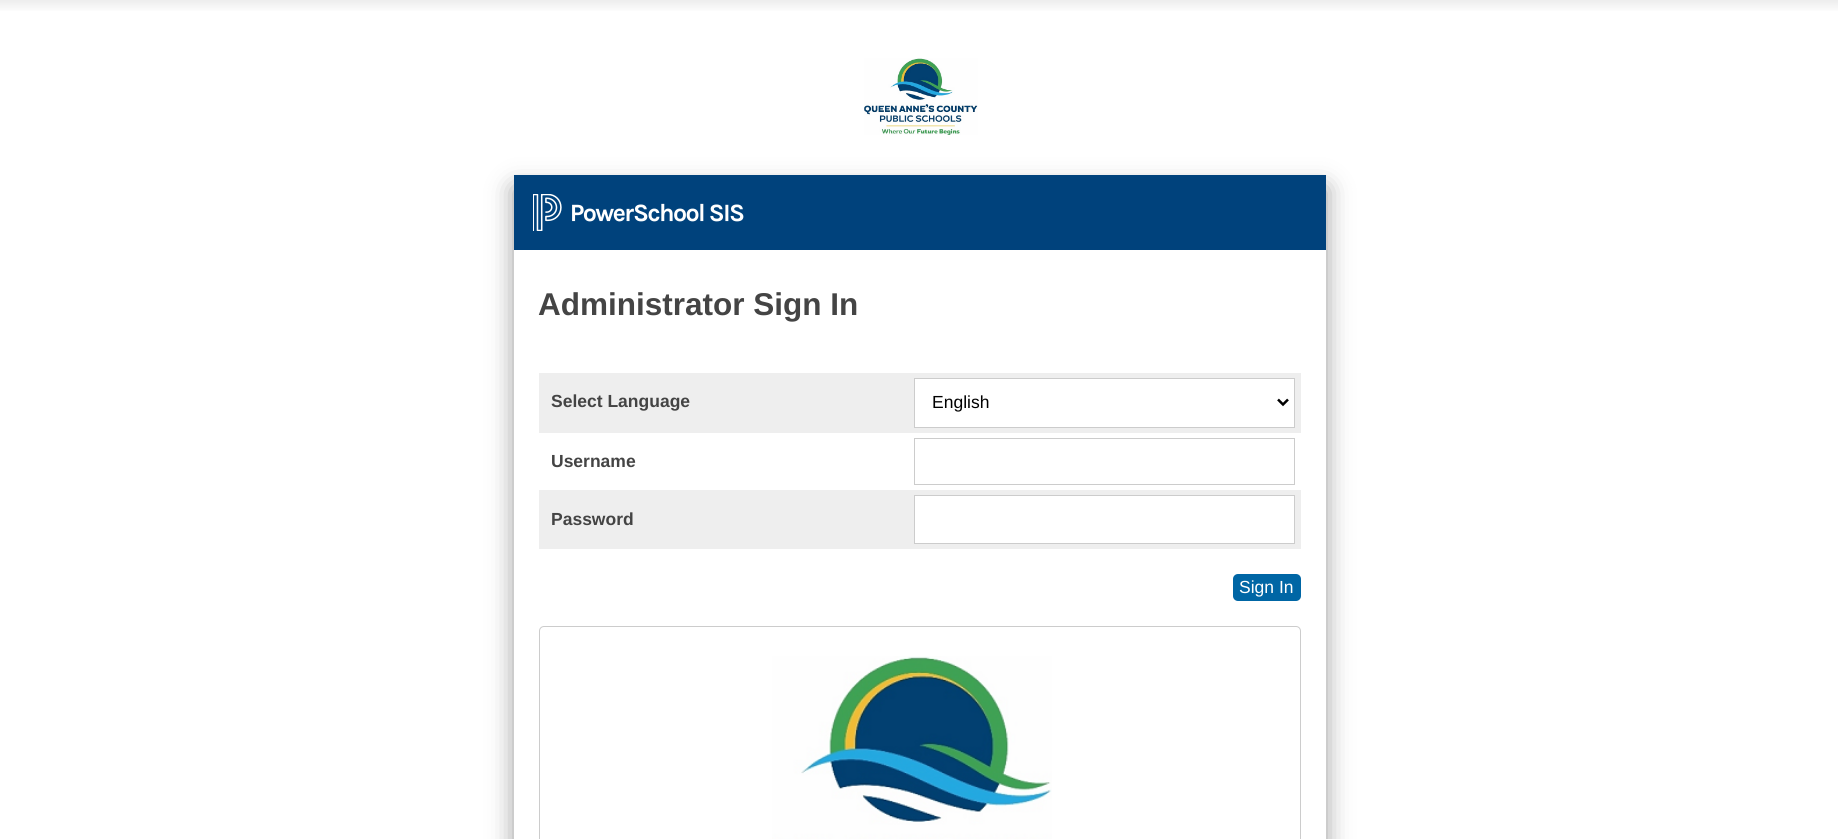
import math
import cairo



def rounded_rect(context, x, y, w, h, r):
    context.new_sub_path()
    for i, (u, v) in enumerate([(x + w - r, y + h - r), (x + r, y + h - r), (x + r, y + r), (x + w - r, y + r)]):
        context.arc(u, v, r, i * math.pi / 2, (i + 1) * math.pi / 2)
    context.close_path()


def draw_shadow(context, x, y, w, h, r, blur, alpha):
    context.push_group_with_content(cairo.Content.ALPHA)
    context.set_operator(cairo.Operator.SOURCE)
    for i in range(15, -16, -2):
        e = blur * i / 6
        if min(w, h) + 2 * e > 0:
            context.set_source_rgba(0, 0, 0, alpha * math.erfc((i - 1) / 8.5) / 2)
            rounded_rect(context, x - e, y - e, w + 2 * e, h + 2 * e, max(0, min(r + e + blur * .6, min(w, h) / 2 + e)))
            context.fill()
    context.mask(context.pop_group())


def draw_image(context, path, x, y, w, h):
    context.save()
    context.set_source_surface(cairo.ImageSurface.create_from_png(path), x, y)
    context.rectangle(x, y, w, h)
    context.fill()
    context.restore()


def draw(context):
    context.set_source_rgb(1, 1, 1)
    context.paint()
    gradient = cairo.LinearGradient(0, 0, 0, 13)
    gradient.add_color_stop_rgba(0, 237 / 255, 237 / 255, 237 / 255, 1)
    gradient.add_color_stop_rgba(1, 1, 1, 1, 1)
    context.set_source(gradient)
    context.rectangle(0, 0, 1838, 11)
    context.fill()
    draw_image(context, "images/1.png", 864, 58, 114, 77)
    context.save()
    context.set_fill_rule(cairo.FillRule.EVEN_ODD)
    context.new_path()
    context.move_to(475, 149)
    context.line_to(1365, 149)
    context.line_to(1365, 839)
    context.line_to(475, 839)
    context.close_path()
    context.move_to(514, 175)
    context.line_to(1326, 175)
    context.line_to(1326, 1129)
    context.line_to(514, 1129)
    context.close_path()
    context.clip()
    context.set_source_rgb(0, 0, 0)
    draw_shadow(context, 514, 188, 812, 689, 0, 12.5, 0.4)
    context.restore()
    context.set_source_rgb(0, 66 / 255, 124 / 255)
    context.rectangle(514, 175, 812, 75)
    context.fill()
    draw_image(context, "images/2.png", 533, 194, 211, 37)
    context.set_source_rgb(238 / 255, 238 / 255, 238 / 255)
    context.rectangle(539, 373, 762, 60)
    context.fill()
    context.set_source_rgb(1, 1, 1)
    context.rectangle(914.5, 378.5, 380, 49)
    context.fill_preserve()
    context.set_source_rgb(204 / 255, 204 / 255, 204 / 255)
    context.set_line_width(1)
    context.stroke()
    context.new_path()
    context.move_to(1278, 399.5)
    context.line_to(1283, 404.5)
    context.line_to(1288, 399.5)
    context.set_source_rgb(0, 0, 0)
    context.set_line_width(2.5)
    context.stroke()
    context.rectangle(914.5, 438.5, 380, 46)
    context.set_source_rgb(204 / 255, 204 / 255, 204 / 255)
    context.set_line_width(1)
    context.stroke()
    context.set_source_rgb(238 / 255, 238 / 255, 238 / 255)
    context.rectangle(539, 490, 762, 59)
    context.fill()
    context.set_source_rgb(1, 1, 1)
    context.rectangle(914.5, 495.5, 380, 48)
    context.fill_preserve()
    context.set_source_rgb(204 / 255, 204 / 255, 204 / 255)
    context.stroke()
    context.set_source_rgb(0, 102 / 255, 165 / 255)
    rounded_rect(context, 1233, 574, 68, 27, 5)
    context.fill()
    rounded_rect(context, 539.5, 626.5, 761, 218, 4.5)
    context.set_source_rgb(204 / 255, 204 / 255, 204 / 255)
    context.stroke()
    draw_image(context, "images/3.png", 772, 656, 280, 183)
    context.select_font_face("Liberation Sans", cairo.FontSlant.NORMAL, cairo.FontWeight.BOLD)
    context.set_font_size(31.5)
    context.set_source_rgb(68 / 255, 68 / 255, 68 / 255)
    context.move_to(538, 315)
    context.show_text("Administrator Sign In")
    context.set_font_size(17.5)
    context.move_to(551, 407)
    context.show_text("Select Language")
    context.select_font_face("Liberation Sans")
    context.set_source_rgb(0, 0, 0)
    context.move_to(932, 408)
    context.show_text("English")
    context.select_font_face("Liberation Sans", cairo.FontSlant.NORMAL, cairo.FontWeight.BOLD)
    context.set_source_rgb(68 / 255, 68 / 255, 68 / 255)
    context.move_to(551, 467)
    context.show_text("Username")
    context.move_to(551, 525)
    context.show_text("Password")
    context.select_font_face("Liberation Sans")
    context.set_source_rgb(1, 1, 1)
    context.move_to(1239, 593)
    context.show_text("Sign In")


surface = cairo.ImageSurface(cairo.Format.RGB24, 1838, 839)
context = cairo.Context(surface)
options = cairo.FontOptions()
options.set_hint_metrics(cairo.HintMetrics.OFF)
options.set_hint_style(cairo.HintStyle.NONE)
context.set_font_options(options)
context.set_miter_limit(4)
draw(context)
surface.write_to_png("out.png")
